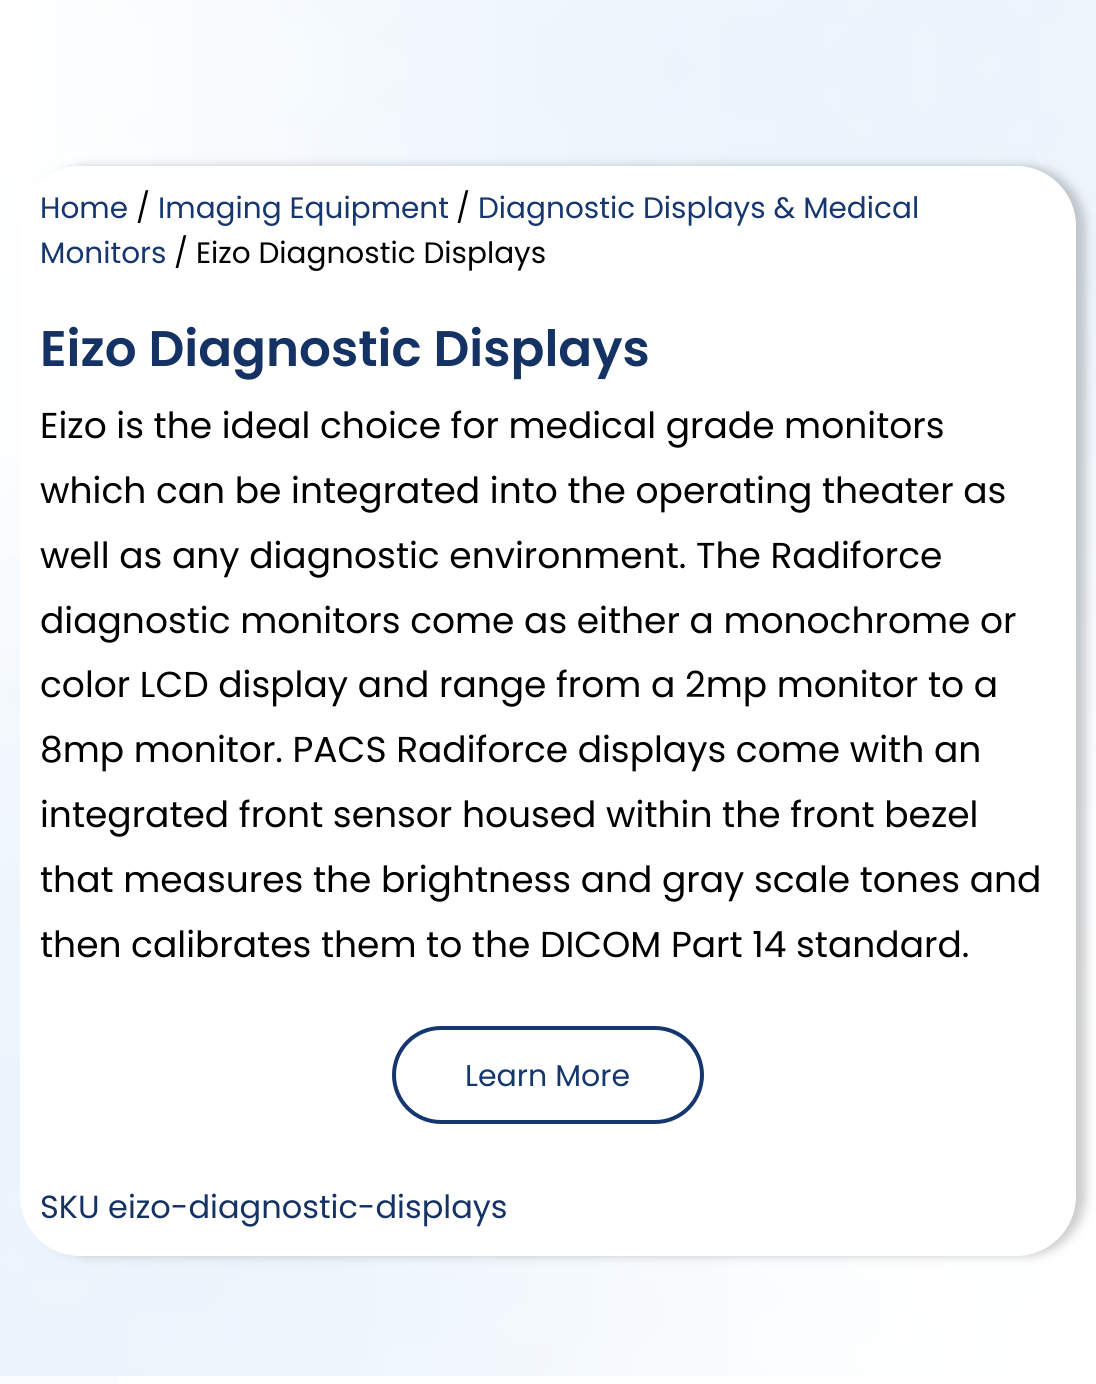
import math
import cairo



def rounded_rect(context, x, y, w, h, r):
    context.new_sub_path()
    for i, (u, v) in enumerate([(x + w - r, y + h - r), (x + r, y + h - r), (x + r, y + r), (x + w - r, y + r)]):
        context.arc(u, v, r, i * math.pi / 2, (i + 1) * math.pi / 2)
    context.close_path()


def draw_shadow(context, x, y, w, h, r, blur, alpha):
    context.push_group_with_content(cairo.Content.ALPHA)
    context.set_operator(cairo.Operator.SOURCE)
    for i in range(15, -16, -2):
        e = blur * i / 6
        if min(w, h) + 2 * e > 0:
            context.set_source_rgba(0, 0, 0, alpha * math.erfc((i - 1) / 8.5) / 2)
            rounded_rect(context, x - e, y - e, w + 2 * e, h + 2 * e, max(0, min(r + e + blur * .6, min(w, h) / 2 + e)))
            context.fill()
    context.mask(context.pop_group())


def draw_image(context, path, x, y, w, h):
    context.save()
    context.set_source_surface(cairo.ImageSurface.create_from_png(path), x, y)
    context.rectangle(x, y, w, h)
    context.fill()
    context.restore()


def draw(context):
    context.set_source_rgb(1, 1, 1)
    context.paint()
    draw_image(context, "images/1.png", 0, 0, 1096, 1376)
    context.set_source_rgb(0, 0, 0)
    draw_shadow(context, 30, 166, 1056, 1090, 60, 5, 0.2)
    context.set_source_rgb(1, 1, 1)
    rounded_rect(context, 20, 166, 1056, 1090, 60)
    context.fill()
    rounded_rect(context, 394, 1028, 308, 94, 47)
    context.set_source_rgb(21 / 255, 54 / 255, 110 / 255)
    context.set_line_width(4)
    context.stroke()
    context.set_source_rgb(250 / 255, 252 / 255, 254 / 255)
    context.rectangle(0, 1376, 119, 8)
    context.fill()
    context.select_font_face("Poppins")
    context.set_font_size(29.5)
    context.set_source_rgb(21 / 255, 54 / 255, 110 / 255)
    context.move_to(40, 218)
    context.show_text("Home")
    context.set_source_rgb(0, 0, 0)
    context.move_to(136, 218)
    context.show_text("/")
    context.set_source_rgb(21 / 255, 54 / 255, 110 / 255)
    context.move_to(158, 218)
    context.show_text("Imaging Equipment")
    context.set_source_rgb(0, 0, 0)
    context.move_to(456, 218)
    context.show_text("/")
    context.set_source_rgb(21 / 255, 54 / 255, 110 / 255)
    context.move_to(478, 218)
    context.show_text("Diagnostic Displays & Medical")
    context.move_to(40, 263)
    context.show_text("Monitors")
    context.set_source_rgb(0, 0, 0)
    context.move_to(174, 263)
    context.show_text("/ Eizo Diagnostic Displays")
    context.select_font_face("Poppins SemiBold")
    context.set_font_size(50)
    context.set_source_rgb(20 / 255, 50 / 255, 100 / 255)
    context.move_to(40, 366)
    context.show_text("Eizo Diagnostic Displays")
    context.select_font_face("Poppins")
    context.set_font_size(36)
    context.set_source_rgb(0, 0, 0)
    context.move_to(40, 438)
    context.show_text("Eizo is the ideal choice for medical grade monitors")
    context.move_to(40, 503)
    context.show_text("which can be integrated into the operating theater as")
    context.move_to(40, 568)
    context.show_text("well as any diagnostic environment. The Radiforce")
    context.move_to(40, 633)
    context.show_text("diagnostic monitors come as either a monochrome or")
    context.move_to(40, 697)
    context.show_text("color LCD display and range from a 2mp monitor to a")
    context.move_to(40, 762)
    context.show_text("8mp monitor. PACS Radiforce displays come with an")
    context.move_to(40, 827)
    context.show_text("integrated front sensor housed within the front bezel")
    context.move_to(40, 892)
    context.show_text("that measures the brightness and gray scale tones and")
    context.move_to(40, 957)
    context.show_text("then calibrates them to the DICOM Part 14 standard.")
    context.set_font_size(30)
    context.set_source_rgb(21 / 255, 54 / 255, 110 / 255)
    context.move_to(465, 1086)
    context.show_text("Learn More")
    context.set_font_size(32)
    context.set_source_rgb(20 / 255, 50 / 255, 100 / 255)
    context.move_to(40, 1218)
    context.show_text("SKU eizo-diagnostic-displays")


surface = cairo.ImageSurface(cairo.Format.RGB24, 1096, 1384)
context = cairo.Context(surface)
options = cairo.FontOptions()
options.set_hint_metrics(cairo.HintMetrics.OFF)
options.set_hint_style(cairo.HintStyle.NONE)
context.set_font_options(options)
context.set_miter_limit(4)
draw(context)
surface.write_to_png("out.png")
